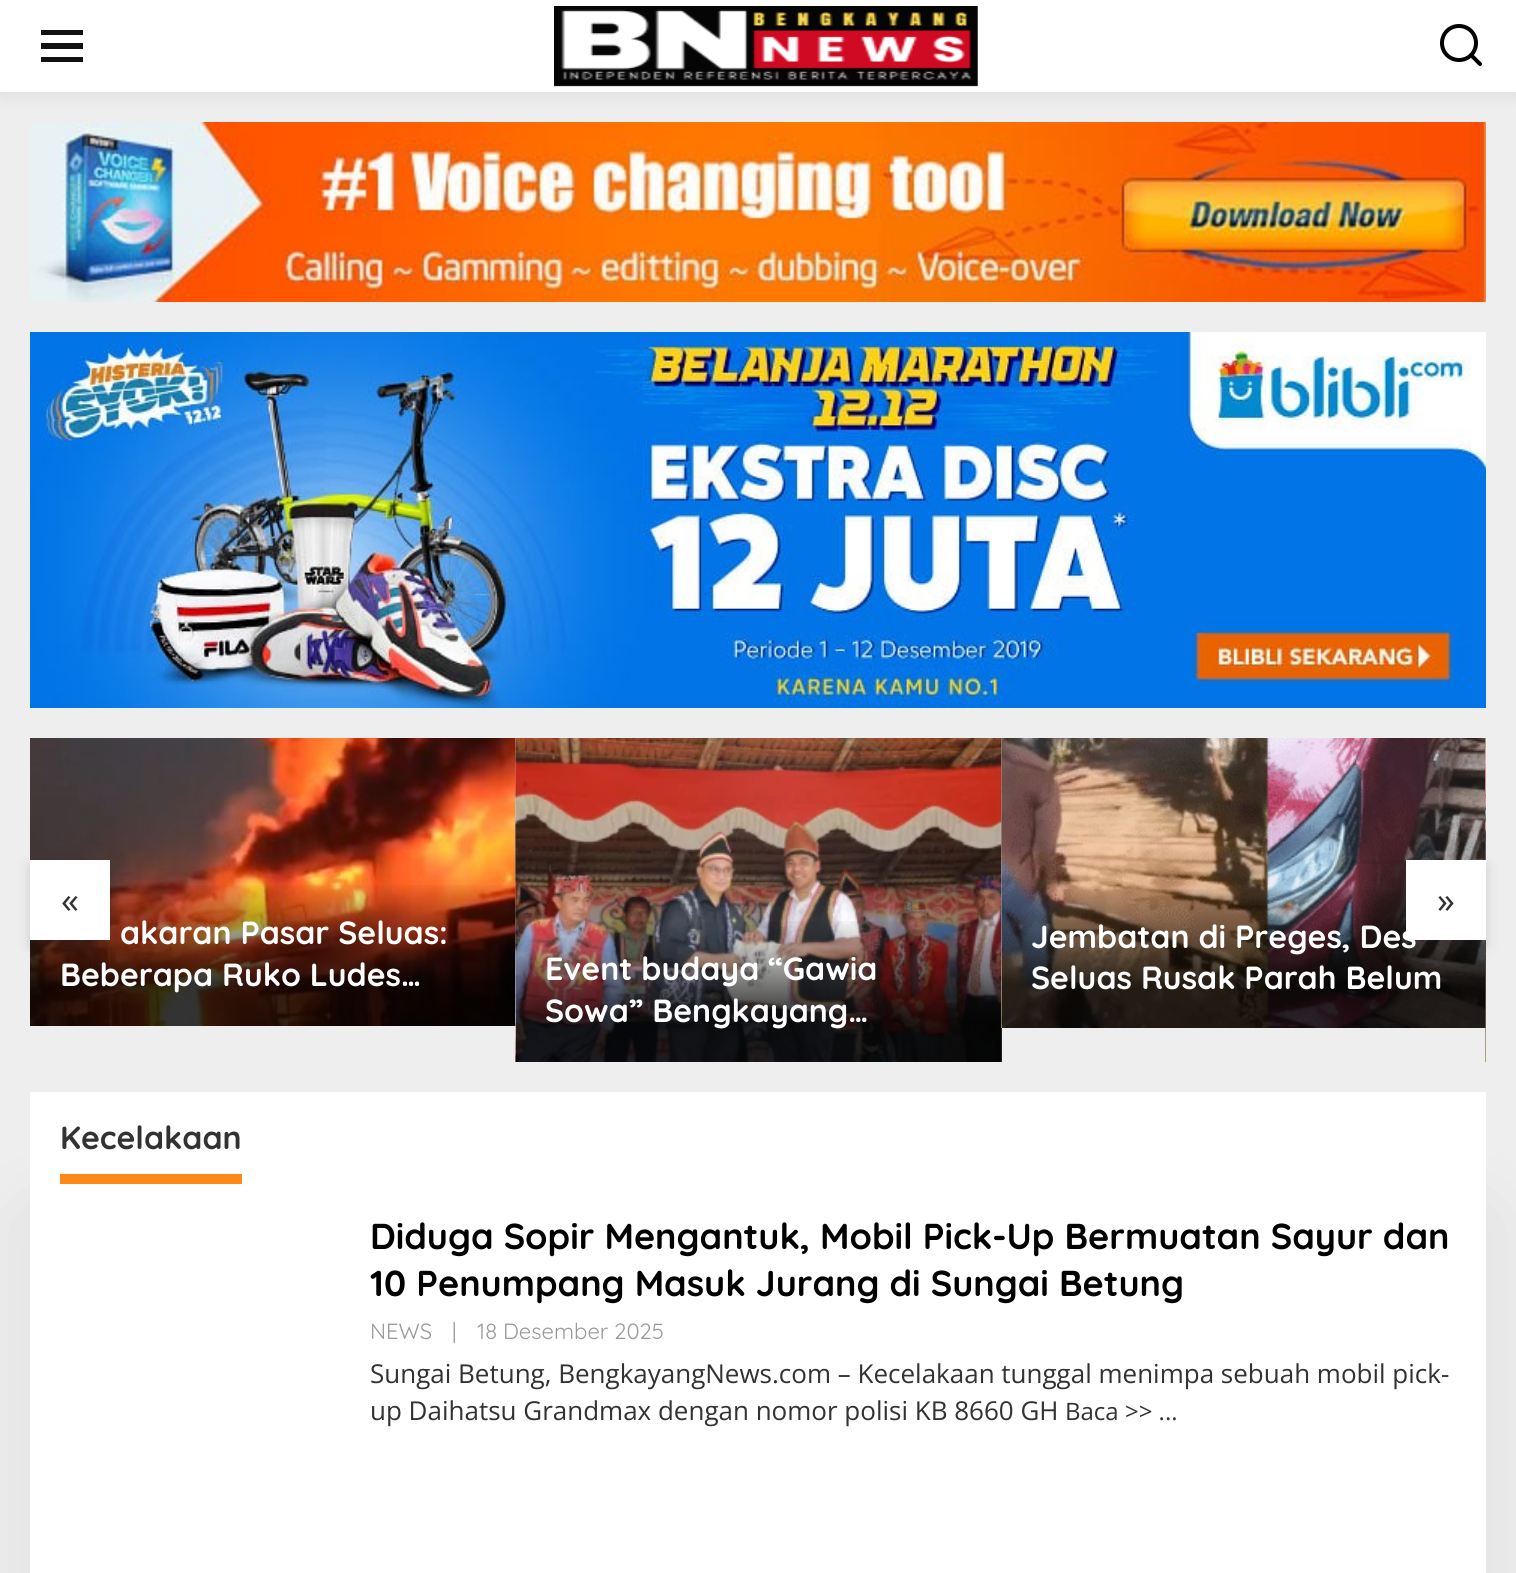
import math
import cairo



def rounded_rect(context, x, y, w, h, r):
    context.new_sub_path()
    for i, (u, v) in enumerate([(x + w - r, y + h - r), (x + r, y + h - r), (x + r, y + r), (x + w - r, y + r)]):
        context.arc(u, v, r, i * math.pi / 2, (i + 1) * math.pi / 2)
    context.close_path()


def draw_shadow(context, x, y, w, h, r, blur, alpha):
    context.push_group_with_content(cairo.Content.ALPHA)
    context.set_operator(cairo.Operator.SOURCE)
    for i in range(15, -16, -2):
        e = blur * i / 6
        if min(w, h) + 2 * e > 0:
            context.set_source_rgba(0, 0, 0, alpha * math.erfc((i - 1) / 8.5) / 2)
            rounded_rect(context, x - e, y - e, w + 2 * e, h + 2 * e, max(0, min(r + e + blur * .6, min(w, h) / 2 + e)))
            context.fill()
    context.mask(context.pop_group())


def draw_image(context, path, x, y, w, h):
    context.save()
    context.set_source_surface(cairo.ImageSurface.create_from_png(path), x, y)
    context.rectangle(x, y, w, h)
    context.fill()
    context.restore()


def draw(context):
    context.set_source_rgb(238 / 255, 238 / 255, 238 / 255)
    context.paint()
    draw_image(context, "images/2.png", 30, 122, 1456, 180)
    context.set_source_rgb(0, 0, 0)
    draw_shadow(context, 0, 0, 1516, 92, 0, 10, 0.1)
    context.set_source_rgb(1, 1, 1)
    context.rectangle(0, 0, 1516, 92)
    context.fill()
    context.set_source_rgb(17 / 255, 17 / 255, 17 / 255)
    context.new_path()
    context.move_to(41, 30)
    context.line_to(83, 30)
    context.line_to(83, 35)
    context.line_to(41, 35)
    context.close_path()
    context.move_to(41, 43)
    context.line_to(83, 43)
    context.line_to(83, 49)
    context.line_to(41, 49)
    context.close_path()
    context.move_to(41, 57)
    context.line_to(83, 57)
    context.line_to(83, 62)
    context.line_to(41, 62)
    context.close_path()
    context.fill()
    draw_image(context, "images/1.png", 554, 6, 424, 81)
    context.new_path()
    context.move_to(1480, 64)
    context.line_to(1471, 55)
    context.move_to(1476, 43)
    context.curve_to(1476, 52.5, 1468.5, 60, 1459, 60)
    context.curve_to(1449.5, 60, 1442, 52.5, 1442, 43)
    context.curve_to(1442, 33.5, 1449.5, 26, 1459, 26)
    context.curve_to(1468.5, 26, 1476, 33.5, 1476, 43)
    context.close_path()
    context.set_source_rgb(0, 0, 0)
    context.set_line_width(4)
    context.set_line_cap(cairo.LineCap.ROUND)
    context.stroke()
    draw_image(context, "images/3.png", 30, 332, 1456, 376)
    draw_image(context, "images/4.png", 30, 738, 486, 288)
    gradient = cairo.LinearGradient(272, 882, 272, 1026)
    gradient.add_color_stop_rgba(0, 0, 0, 0, 0)
    gradient.add_color_stop_rgba(0.7, 0, 0, 0, 0.8)
    context.set_source(gradient)
    context.rectangle(30, 885, 486, 141)
    context.fill()
    context.set_source_rgb(51 / 255, 51 / 255, 51 / 255)
    draw_shadow(context, 30, 866, 80, 80, 0, 6, 0.2)
    context.set_source_rgb(1, 1, 1)
    context.rectangle(30, 860, 80, 80)
    context.fill()
    draw_image(context, "images/5.png", 515, 738, 487, 324)
    gradient = cairo.LinearGradient(758, 918, 758, 1062)
    gradient.add_color_stop_rgba(0, 0, 0, 0, 0)
    gradient.add_color_stop_rgba(0.7, 0, 0, 0, 0.8)
    context.set_source(gradient)
    context.rectangle(516, 921, 486, 141)
    context.fill()
    draw_image(context, "images/6.png", 1001, 738, 485, 290)
    gradient = cairo.LinearGradient(1243, 886, 1243, 1028)
    gradient.add_color_stop_rgba(0, 0, 0, 0, 0)
    gradient.add_color_stop_rgba(0.7, 0, 0, 0, 0.8)
    context.set_source(gradient)
    context.rectangle(1002, 889, 484, 139)
    context.fill()
    draw_image(context, "images/7.png", 1485, 738, 1, 324)
    context.set_source_rgb(51 / 255, 51 / 255, 51 / 255)
    draw_shadow(context, 1406, 866, 80, 80, 0, 6, 0.2)
    context.set_source_rgb(1, 1, 1)
    context.rectangle(1406, 860, 80, 80)
    context.fill()
    context.set_source_rgb(0, 0, 0)
    draw_shadow(context, 30, 1216, 1456, 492, 0, 45, 0.07)
    context.set_source_rgb(1, 1, 1)
    context.rectangle(30, 1092, 1456, 481)
    context.fill()
    context.set_source_rgb(254 / 255, 137 / 255, 23 / 255)
    context.rectangle(60, 1174, 182, 10)
    context.fill()
    context.select_font_face("Open Sans")
    context.set_font_size(36)
    context.set_source_rgb(50 / 255, 50 / 255, 51 / 255)
    context.move_to(61, 913)
    context.show_text("«")
    context.move_to(1437, 913)
    context.show_text("»")
    context.select_font_face("Quicksand", cairo.FontSlant.NORMAL, cairo.FontWeight.BOLD)
    context.set_font_size(32)
    context.set_source_rgb(1, 1, 1)
    context.move_to(120, 944)
    context.show_text("akaran Pasar Seluas:")
    context.move_to(60, 986)
    context.show_text("Beberapa Ruko Ludes…")
    context.move_to(545, 980)
    context.show_text("Event budaya “Gawia")
    context.move_to(545, 1022)
    context.show_text("Sowa” Bengkayang…")
    context.move_to(1031, 948)
    context.show_text("Jembatan di Preges, Des")
    context.move_to(1031, 989)
    context.show_text("Seluas Rusak Parah Belum")
    context.set_source_rgb(50 / 255, 50 / 255, 51 / 255)
    context.move_to(60, 1149)
    context.show_text("Kecelakaan")
    context.set_font_size(36)
    context.set_source_rgb(0, 0, 0)
    context.move_to(370, 1249)
    context.show_text("Diduga Sopir Mengantuk, Mobil Pick-Up Bermuatan Sayur dan")
    context.move_to(370, 1296)
    context.show_text("10 Penumpang Masuk Jurang di Sungai Betung")
    context.select_font_face("Quicksand")
    context.set_font_size(22)
    context.set_source_rgb(153 / 255, 153 / 255, 153 / 255)
    context.move_to(370, 1339)
    context.show_text("NEWS")
    context.move_to(452, 1339)
    context.show_text("|")
    context.move_to(477, 1339)
    context.show_text("18 Desember 2025")
    context.select_font_face("Open Sans")
    context.set_font_size(26)
    context.set_source_rgb(50 / 255, 50 / 255, 51 / 255)
    context.move_to(370, 1383)
    context.show_text("Sungai Betung, BengkayangNews.com – Kecelakaan tunggal menimpa sebuah mobil pick-")
    context.move_to(370, 1420)
    context.show_text("up Daihatsu Grandmax dengan nomor polisi KB 8660 GH")
    context.set_font_size(24)
    context.move_to(1065, 1420)
    context.show_text("Baca >> ...")


surface = cairo.ImageSurface(cairo.Format.RGB24, 1516, 1573)
context = cairo.Context(surface)
options = cairo.FontOptions()
options.set_hint_metrics(cairo.HintMetrics.OFF)
options.set_hint_style(cairo.HintStyle.NONE)
context.set_font_options(options)
context.set_miter_limit(4)
draw(context)
surface.write_to_png("out.png")
